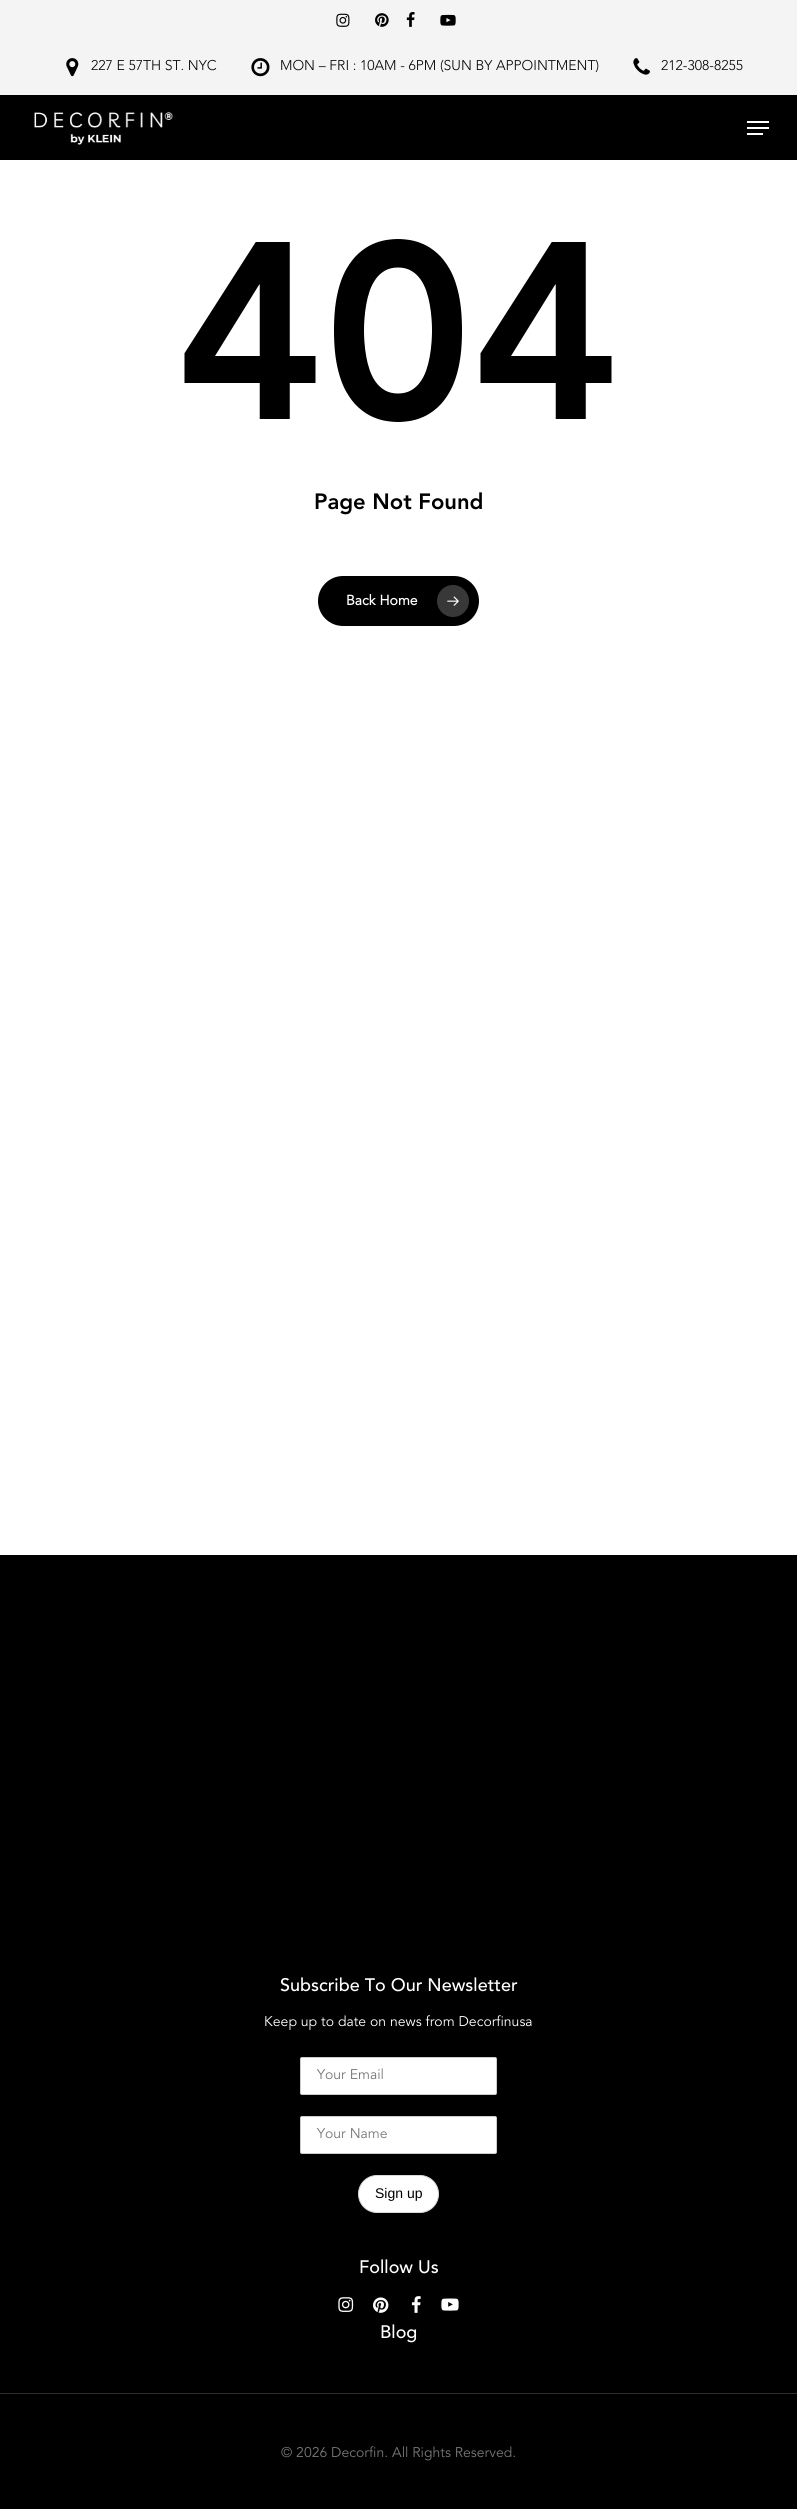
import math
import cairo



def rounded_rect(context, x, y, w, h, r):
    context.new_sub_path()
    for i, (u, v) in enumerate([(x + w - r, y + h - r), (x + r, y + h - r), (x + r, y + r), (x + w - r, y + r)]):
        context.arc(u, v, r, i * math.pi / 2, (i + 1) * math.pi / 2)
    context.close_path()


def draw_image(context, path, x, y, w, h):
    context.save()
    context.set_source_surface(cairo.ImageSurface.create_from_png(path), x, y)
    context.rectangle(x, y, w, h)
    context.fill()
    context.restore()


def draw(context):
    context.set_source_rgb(1, 1, 1)
    context.paint()
    context.set_source_rgb(244 / 255, 244 / 255, 244 / 255)
    context.rectangle(0, 0, 797, 95)
    context.fill()
    draw_image(context, "images/1.png", 336, 13, 14, 14)
    draw_image(context, "images/2.png", 375, 13, 14, 14)
    draw_image(context, "images/3.png", 406, 12, 9, 15)
    draw_image(context, "images/4.png", 440, 14, 16, 12)
    draw_image(context, "images/5.png", 66, 58, 13, 19)
    draw_image(context, "images/6.png", 251, 58, 19, 19)
    draw_image(context, "images/7.png", 633, 58, 17, 17)
    context.set_source_rgb(0, 0, 0)
    context.rectangle(0, 95, 797, 65)
    context.fill()
    draw_image(context, "images/8.png", 34, 112, 139, 33)
    context.set_source_rgb(1, 1, 1)
    context.rectangle(747, 121, 22, 2)
    context.fill()
    context.rectangle(747, 133, 16, 2)
    context.fill()
    context.rectangle(747, 127, 22, 2)
    context.fill()
    context.set_source_rgb(0, 0, 0)
    rounded_rect(context, 318, 576, 161, 50, 25)
    context.fill()
    context.set_source_rgb(56 / 255, 56 / 255, 56 / 255)
    context.arc(453, 601, 16, 0, 2 * math.pi)
    context.fill()
    draw_image(context, "images/9.png", 447, 596, 12, 10)
    context.set_source_rgb(0, 0, 0)
    context.rectangle(0, 1555, 797, 838)
    context.fill()
    context.set_source_rgb(1, 1, 1)
    rounded_rect(context, 300.5, 2057.5, 196, 37, 1.5)
    context.fill_preserve()
    context.set_source_rgb(204 / 255, 204 / 255, 204 / 255)
    context.set_line_width(1)
    context.stroke()
    context.set_source_rgb(1, 1, 1)
    rounded_rect(context, 300.5, 2116.5, 196, 37, 1.5)
    context.fill_preserve()
    context.set_source_rgb(204 / 255, 204 / 255, 204 / 255)
    context.stroke()
    context.set_source_rgb(1, 1, 1)
    rounded_rect(context, 358.5, 2175.5, 80, 37, 18.5)
    context.fill_preserve()
    context.set_source_rgb(217 / 255, 217 / 255, 217 / 255)
    context.stroke()
    draw_image(context, "images/10.png", 338, 2297, 16, 15)
    draw_image(context, "images/11.png", 373, 2297, 16, 16)
    draw_image(context, "images/12.png", 411, 2296, 10, 17)
    draw_image(context, "images/13.png", 441, 2298, 18, 13)
    context.set_source_rgb(0, 0, 0)
    context.rectangle(0, 2394, 797, 115)
    context.fill()
    context.set_source_rgb(46 / 255, 46 / 255, 46 / 255)
    context.rectangle(0, 2393, 797, 1)
    context.fill()
    context.select_font_face("Avenir Light")
    context.set_font_size(14)
    context.set_source_rgb(0, 0, 0)
    context.move_to(91, 70)
    context.show_text("227 E 57TH ST. NYC")
    context.move_to(280, 70)
    context.show_text("MON – FRI : 10AM - 6PM (SUN BY APPOINTMENT)")
    context.move_to(661, 70)
    context.show_text("212-308-8255")
    context.select_font_face("Avenir Black")
    context.set_font_size(250)
    context.move_to(176, 419)
    context.show_text("404")
    context.set_font_size(22)
    context.move_to(314, 509)
    context.show_text("Page Not Found")
    context.select_font_face("Avenir", cairo.FontSlant.NORMAL, cairo.FontWeight.BOLD)
    context.set_font_size(14)
    context.set_source_rgb(1, 1, 1)
    context.move_to(346, 605)
    context.show_text("Back Home")
    context.select_font_face("Avenir Medium")
    context.set_font_size(18)
    context.move_to(280, 1991)
    context.show_text("Subscribe To Our Newsletter")
    context.select_font_face("Avenir")
    context.set_font_size(14)
    context.move_to(264, 2026)
    context.show_text("Keep up to date on news from Decorfinusa")
    context.set_source_rgb(119 / 255, 119 / 255, 119 / 255)
    context.move_to(317, 2079)
    context.show_text("Your Email")
    context.move_to(317, 2138)
    context.show_text("Your Name")
    context.select_font_face("Liberation Sans")
    context.set_source_rgb(0, 0, 0)
    context.move_to(375, 2198)
    context.show_text("Sign up")
    context.select_font_face("Avenir Medium")
    context.set_font_size(18)
    context.set_source_rgb(1, 1, 1)
    context.move_to(359, 2273)
    context.show_text("Follow Us")
    context.move_to(380, 2338)
    context.show_text("Blog")
    context.select_font_face("Avenir")
    context.set_font_size(14)
    context.set_source_rgb(119 / 255, 119 / 255, 119 / 255)
    context.move_to(281, 2457)
    context.show_text("© 2026 Decorfin. All Rights Reserved.")


surface = cairo.ImageSurface(cairo.Format.RGB24, 797, 2509)
context = cairo.Context(surface)
options = cairo.FontOptions()
options.set_hint_metrics(cairo.HintMetrics.OFF)
options.set_hint_style(cairo.HintStyle.NONE)
context.set_font_options(options)
context.set_miter_limit(4)
draw(context)
surface.write_to_png("out.png")
